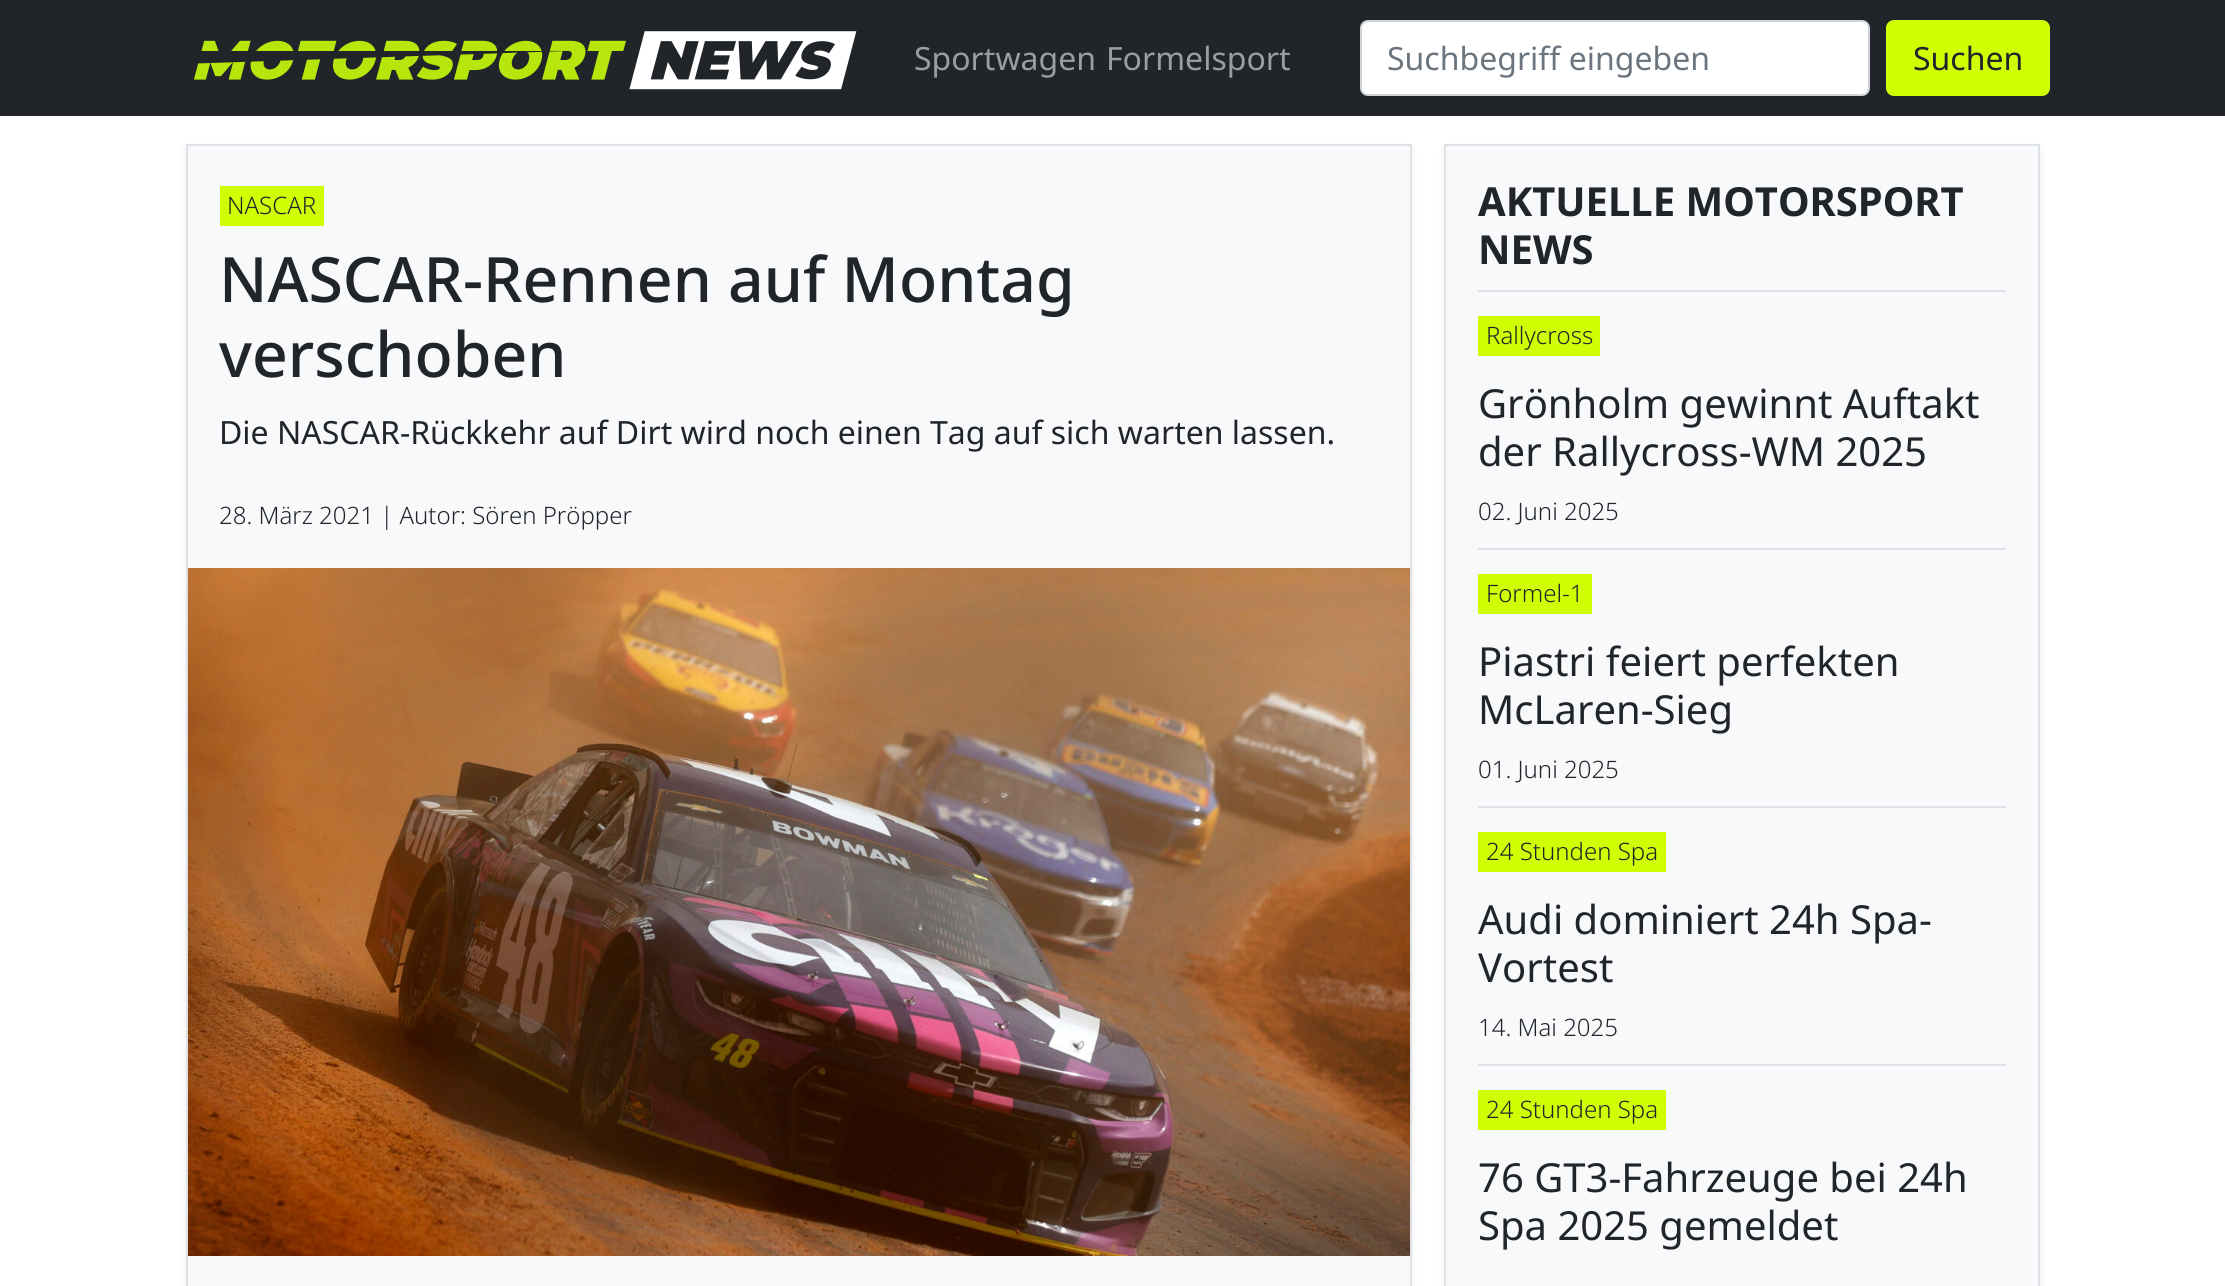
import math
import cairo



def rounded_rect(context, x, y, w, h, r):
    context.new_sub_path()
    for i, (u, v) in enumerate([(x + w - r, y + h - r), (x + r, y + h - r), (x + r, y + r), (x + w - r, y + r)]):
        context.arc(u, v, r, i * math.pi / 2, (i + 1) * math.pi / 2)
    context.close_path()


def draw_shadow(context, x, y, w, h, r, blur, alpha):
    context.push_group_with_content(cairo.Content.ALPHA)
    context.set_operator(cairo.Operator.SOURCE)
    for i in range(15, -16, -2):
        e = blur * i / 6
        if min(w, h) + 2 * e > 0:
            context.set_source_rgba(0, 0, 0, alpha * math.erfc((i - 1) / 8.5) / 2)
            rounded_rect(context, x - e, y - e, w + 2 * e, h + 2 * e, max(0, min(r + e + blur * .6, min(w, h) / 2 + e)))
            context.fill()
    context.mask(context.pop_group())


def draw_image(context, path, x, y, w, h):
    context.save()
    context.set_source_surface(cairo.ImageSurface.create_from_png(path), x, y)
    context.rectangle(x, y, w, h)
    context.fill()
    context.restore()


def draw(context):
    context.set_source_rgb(1, 1, 1)
    context.paint()
    context.set_source_rgb(33 / 255, 37 / 255, 41 / 255)
    context.rectangle(0, 0, 2225, 116)
    context.fill()
    draw_image(context, "images/1.png", 194, 31, 663, 59)
    context.set_source_rgb(1, 1, 1)
    rounded_rect(context, 1361, 21, 508, 74, 7)
    context.fill_preserve()
    context.set_source_rgb(206 / 255, 212 / 255, 218 / 255)
    context.stroke()
    context.set_source_rgb(208 / 255, 254 / 255, 5 / 255)
    rounded_rect(context, 1886, 20, 164, 76, 8)
    context.fill()
    context.set_source_rgb(0, 0, 0)
    draw_shadow(context, 186, 148, 1226, 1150, 0, 4, 0.07)
    context.set_source_rgb(248 / 255, 249 / 255, 250 / 255)
    context.rectangle(188, 147, 1222, 1139)
    context.fill()
    context.rectangle(187, 145, 1224, 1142)
    context.set_source_rgb(222 / 255, 226 / 255, 230 / 255)
    context.stroke()
    context.set_source_rgb(208 / 255, 254 / 255, 5 / 255)
    context.rectangle(220, 186, 104, 40)
    context.fill()
    draw_image(context, "images/2.png", 188, 568, 1222, 688)
    context.set_source_rgb(0, 0, 0)
    draw_shadow(context, 1444, 148, 596, 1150, 0, 4, 0.07)
    context.set_source_rgb(248 / 255, 249 / 255, 250 / 255)
    context.rectangle(1446, 147, 592, 1139)
    context.fill()
    context.rectangle(1445, 145, 594, 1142)
    context.set_source_rgb(222 / 255, 226 / 255, 230 / 255)
    context.stroke()
    context.rectangle(1478, 290, 528, 2)
    context.fill()
    context.rectangle(1478, 548, 528, 2)
    context.fill()
    context.set_source_rgb(208 / 255, 254 / 255, 5 / 255)
    context.rectangle(1478, 316, 122, 40)
    context.fill()
    context.set_source_rgb(222 / 255, 226 / 255, 230 / 255)
    context.rectangle(1478, 806, 528, 2)
    context.fill()
    context.set_source_rgb(208 / 255, 254 / 255, 5 / 255)
    context.rectangle(1478, 574, 114, 40)
    context.fill()
    context.set_source_rgb(222 / 255, 226 / 255, 230 / 255)
    context.rectangle(1478, 1064, 528, 2)
    context.fill()
    context.set_source_rgb(208 / 255, 254 / 255, 5 / 255)
    context.rectangle(1478, 832, 188, 40)
    context.fill()
    context.rectangle(1478, 1090, 188, 40)
    context.fill()
    context.select_font_face("Noto Sans")
    context.set_font_size(32)
    context.set_source_rgb(155 / 255, 157 / 255, 159 / 255)
    context.move_to(914, 70)
    context.show_text("Sportwagen")
    context.move_to(1106, 70)
    context.show_text("Formelsport")
    context.set_source_rgb(108 / 255, 117 / 255, 125 / 255)
    context.move_to(1387, 70)
    context.show_text("Suchbegriff eingeben")
    context.set_source_rgb(33 / 255, 37 / 255, 41 / 255)
    context.move_to(1913, 70)
    context.show_text("Suchen")
    context.select_font_face("Noto Sans Light")
    context.set_font_size(24)
    context.move_to(227, 214)
    context.show_text("NASCAR")
    context.select_font_face("Noto Sans Medium")
    context.set_font_size(62.5)
    context.move_to(219, 302)
    context.show_text("NASCAR-Rennen auf Montag")
    context.move_to(219, 377)
    context.show_text("verschoben")
    context.select_font_face("Noto Sans")
    context.set_font_size(32)
    context.move_to(219, 444)
    context.show_text("Die NASCAR-Rückkehr auf Dirt wird noch einen Tag auf sich warten lassen.")
    context.select_font_face("Noto Sans Light")
    context.set_font_size(24)
    context.move_to(219, 524)
    context.show_text("28. März 2021 | Autor: Sören Pröpper")
    context.select_font_face("Noto Sans", cairo.FontSlant.NORMAL, cairo.FontWeight.BOLD)
    context.set_font_size(40)
    context.move_to(1478, 216)
    context.show_text("AKTUELLE MOTORSPORT")
    context.move_to(1478, 264)
    context.show_text("NEWS")
    context.select_font_face("Noto Sans Light")
    context.set_font_size(24)
    context.move_to(1486, 344)
    context.show_text("Rallycross")
    context.select_font_face("Noto Sans")
    context.set_font_size(40)
    context.move_to(1478, 418)
    context.show_text("Grönholm gewinnt Auftakt")
    context.move_to(1478, 466)
    context.show_text("der Rallycross-WM 2025")
    context.select_font_face("Noto Sans Light")
    context.set_font_size(24)
    context.move_to(1478, 520)
    context.show_text("02. Juni 2025")
    context.move_to(1486, 602)
    context.show_text("Formel-1")
    context.select_font_face("Noto Sans")
    context.set_font_size(40)
    context.move_to(1478, 676)
    context.show_text("Piastri feiert perfekten")
    context.move_to(1478, 724)
    context.show_text("McLaren-Sieg")
    context.select_font_face("Noto Sans Light")
    context.set_font_size(24)
    context.move_to(1478, 778)
    context.show_text("01. Juni 2025")
    context.move_to(1486, 860)
    context.show_text("24 Stunden Spa")
    context.select_font_face("Noto Sans")
    context.set_font_size(40)
    context.move_to(1478, 934)
    context.show_text("Audi dominiert 24h Spa-")
    context.move_to(1478, 982)
    context.show_text("Vortest")
    context.select_font_face("Noto Sans Light")
    context.set_font_size(24)
    context.move_to(1478, 1036)
    context.show_text("14. Mai 2025")
    context.move_to(1486, 1118)
    context.show_text("24 Stunden Spa")
    context.select_font_face("Noto Sans")
    context.set_font_size(40)
    context.move_to(1478, 1192)
    context.show_text("76 GT3-Fahrzeuge bei 24h")
    context.move_to(1478, 1240)
    context.show_text("Spa 2025 gemeldet")


surface = cairo.ImageSurface(cairo.Format.RGB24, 2225, 1286)
context = cairo.Context(surface)
options = cairo.FontOptions()
options.set_hint_metrics(cairo.HintMetrics.OFF)
options.set_hint_style(cairo.HintStyle.NONE)
context.set_font_options(options)
context.set_miter_limit(4)
draw(context)
surface.write_to_png("out.png")
